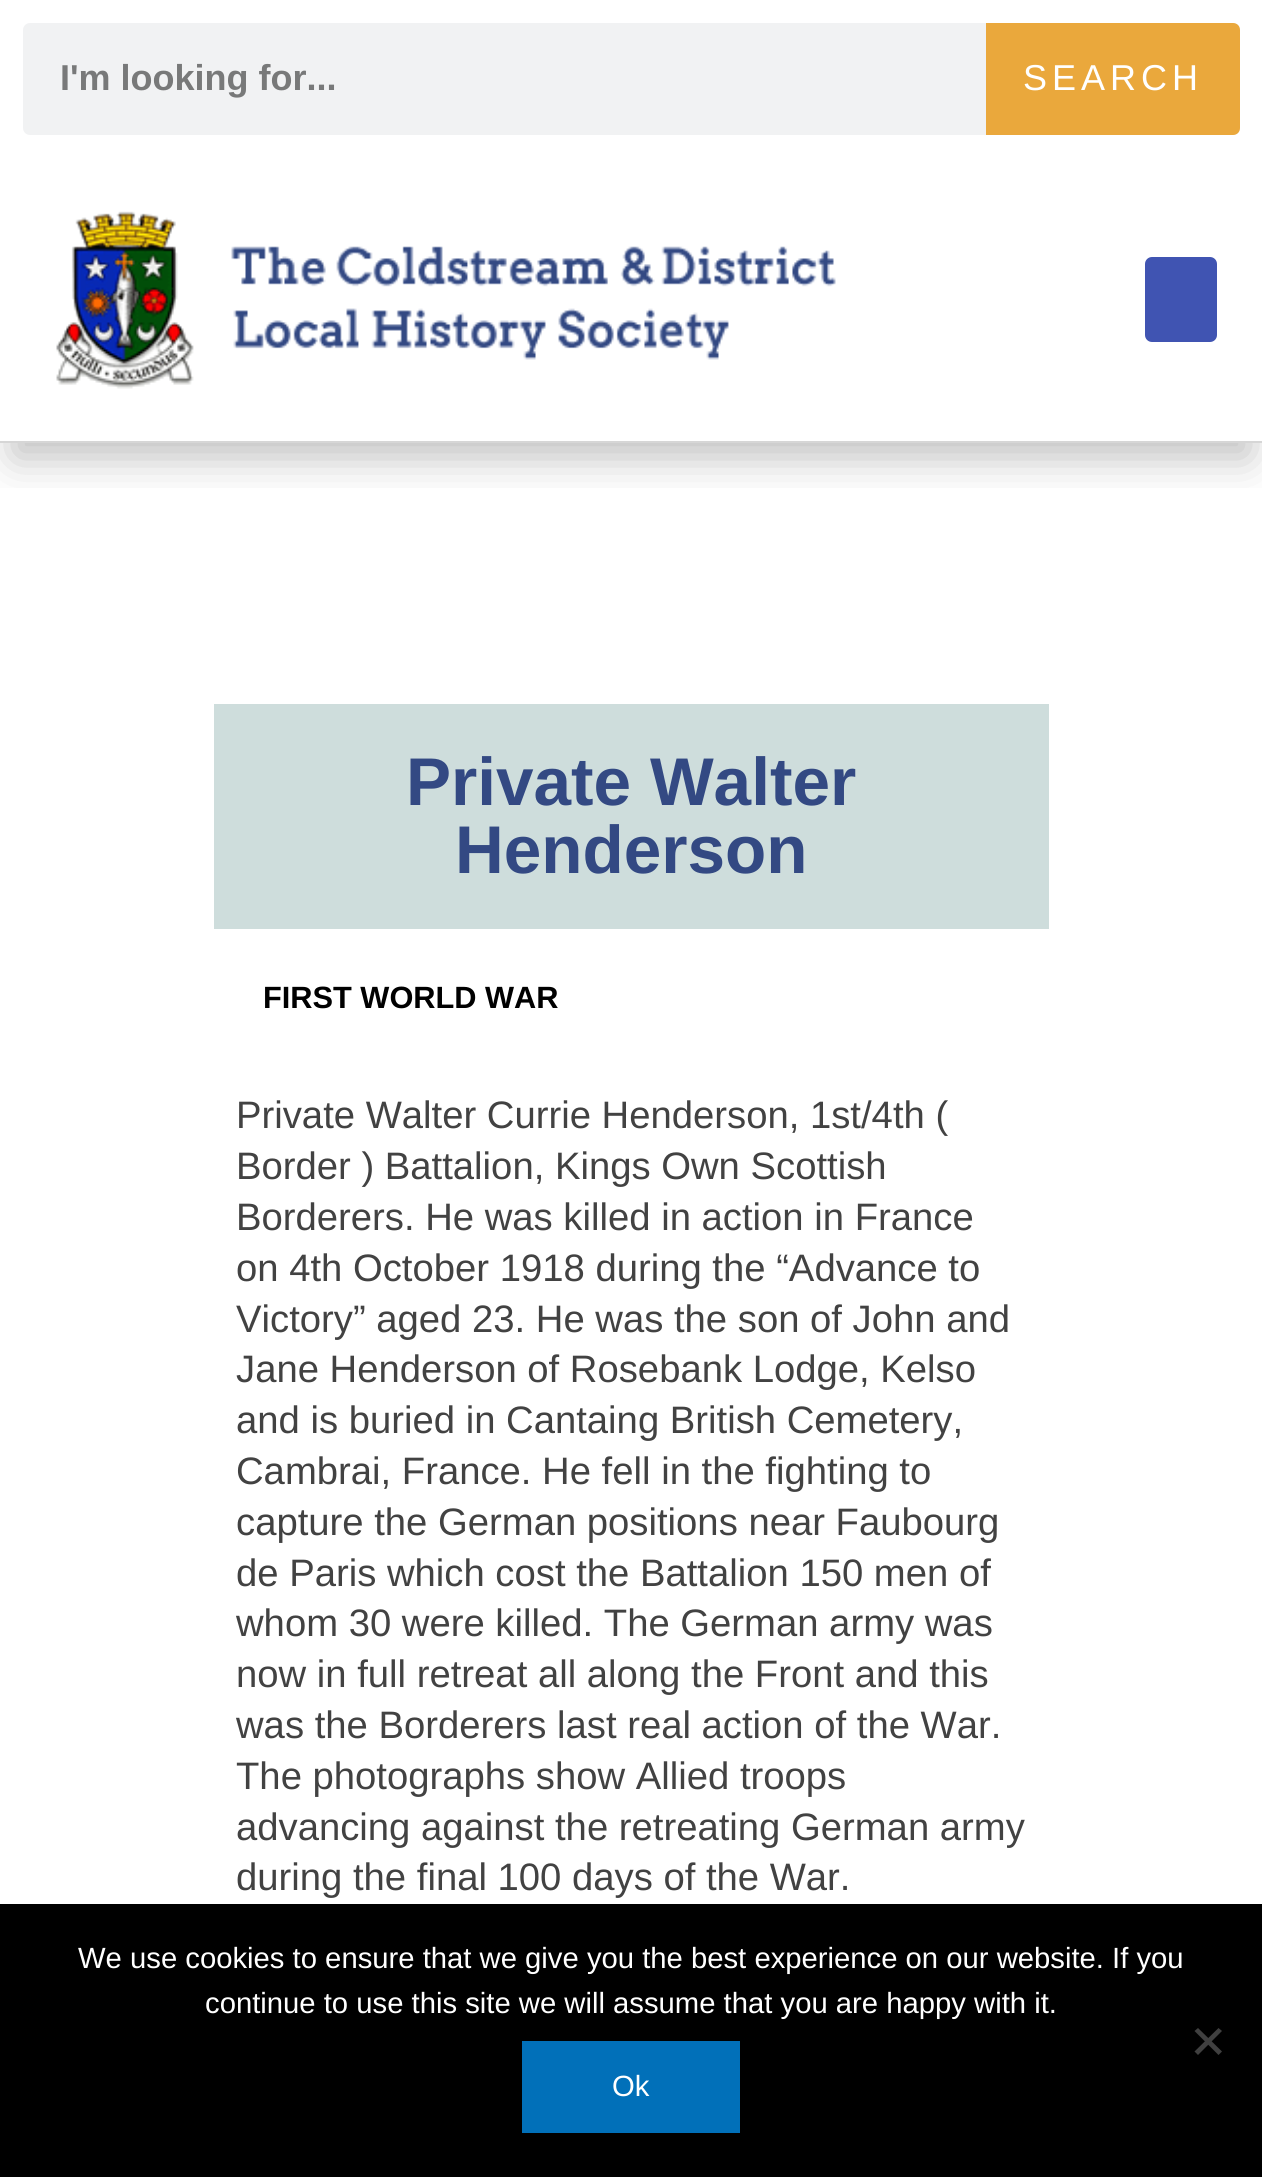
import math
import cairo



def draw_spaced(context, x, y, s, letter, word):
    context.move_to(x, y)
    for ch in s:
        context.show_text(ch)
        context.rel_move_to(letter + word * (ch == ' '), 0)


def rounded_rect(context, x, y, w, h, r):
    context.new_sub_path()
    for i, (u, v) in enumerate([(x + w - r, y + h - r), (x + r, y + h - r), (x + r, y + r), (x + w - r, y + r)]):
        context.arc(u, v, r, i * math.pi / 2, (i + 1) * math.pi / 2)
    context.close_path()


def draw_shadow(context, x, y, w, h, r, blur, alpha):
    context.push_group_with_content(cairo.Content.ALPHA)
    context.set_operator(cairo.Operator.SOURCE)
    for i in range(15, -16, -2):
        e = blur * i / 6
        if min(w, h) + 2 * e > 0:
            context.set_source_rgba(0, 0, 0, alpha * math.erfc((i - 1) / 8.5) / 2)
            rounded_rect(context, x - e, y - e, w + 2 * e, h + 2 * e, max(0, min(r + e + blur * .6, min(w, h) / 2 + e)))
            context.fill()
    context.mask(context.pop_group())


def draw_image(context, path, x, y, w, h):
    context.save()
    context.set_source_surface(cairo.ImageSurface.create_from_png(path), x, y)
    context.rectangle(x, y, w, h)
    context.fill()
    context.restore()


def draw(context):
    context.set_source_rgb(1, 1, 1)
    context.paint()
    context.save()
    context.rectangle(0, 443, 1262, 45)
    context.clip()
    context.set_source_rgb(0, 0, 0)
    draw_shadow(context, 14, 41, 1235, 416, 0, 21.5, 0.26)
    context.restore()
    context.set_source_rgb(214 / 255, 214 / 255, 214 / 255)
    context.rectangle(0, 441, 1262, 2)
    context.fill()
    context.set_source_rgb(241 / 255, 242 / 255, 243 / 255)
    rounded_rect(context, 23, 23, 1217, 112, 7)
    context.fill()
    context.set_source_rgb(234 / 255, 168 / 255, 60 / 255)
    context.new_path()
    context.move_to(986, 23)
    context.line_to(1233, 23)
    context.curve_to(1237, 23, 1240, 26, 1240, 30)
    context.line_to(1240, 128)
    context.curve_to(1240, 132, 1237, 135, 1233, 135)
    context.line_to(986, 135)
    context.close_path()
    context.fill()
    draw_image(context, "images/1.png", 56, 211, 780, 178)
    context.set_source_rgb(64 / 255, 84 / 255, 178 / 255)
    rounded_rect(context, 1145, 257, 72, 85, 7)
    context.fill()
    context.set_source_rgb(206 / 255, 221 / 255, 220 / 255)
    context.rectangle(214, 704, 835, 225)
    context.fill()
    context.set_source_rgb(0, 0, 0)
    context.rectangle(0, 1904, 1262, 273)
    context.fill()
    context.set_source_rgb(64 / 255, 64 / 255, 64 / 255)
    context.new_path()
    context.move_to(1218.5, 2028)
    context.line_to(1222, 2031)
    context.line_to(1198, 2055)
    context.line_to(1194.5, 2051.5)
    context.close_path()
    context.fill()
    context.new_path()
    context.move_to(1194.5, 2031)
    context.line_to(1198, 2028)
    context.line_to(1222, 2051.5)
    context.line_to(1218.5, 2055)
    context.close_path()
    context.fill()
    context.set_source_rgb(1 / 255, 112 / 255, 185 / 255)
    context.rectangle(522, 2041, 218, 92)
    context.fill()
    context.select_font_face("Liberation Sans", cairo.FontSlant.NORMAL, cairo.FontWeight.BOLD)
    context.set_font_size(36)
    context.set_source_rgb(120 / 255, 121 / 255, 121 / 255)
    context.move_to(60, 90)
    context.show_text("I'm looking for...")
    context.select_font_face("Liberation Sans")
    context.set_source_rgb(1, 1, 1)
    draw_spaced(context, 1023, 90, "SEARCH", 5, 0)
    context.select_font_face("Liberation Sans", cairo.FontSlant.NORMAL, cairo.FontWeight.BOLD)
    context.set_font_size(67.5)
    context.set_source_rgb(51 / 255, 73 / 255, 131 / 255)
    context.move_to(406, 805)
    context.show_text("Private Walter")
    context.move_to(455, 873)
    context.show_text("Henderson")
    context.set_font_size(30.75)
    context.set_source_rgb(0, 0, 0)
    context.move_to(263, 1008)
    context.show_text("FIRST WORLD WAR")
    context.select_font_face("Liberation Sans")
    context.set_font_size(38.25)
    context.set_source_rgb(66 / 255, 66 / 255, 66 / 255)
    context.move_to(236, 1128)
    context.show_text("Private Walter Currie Henderson, 1st/4th (")
    context.move_to(236, 1179)
    context.show_text("Border ) Battalion, Kings Own Scottish")
    context.move_to(236, 1230)
    context.show_text("Borderers. He was killed in action in France")
    context.move_to(236, 1281)
    context.show_text("on 4th October 1918 during the “Advance to")
    context.move_to(236, 1332)
    context.show_text("Victory” aged 23. He was the son of John and")
    context.move_to(236, 1382)
    context.show_text("Jane Henderson of Rosebank Lodge, Kelso")
    context.move_to(236, 1433)
    context.show_text("and is buried in Cantaing British Cemetery,")
    context.move_to(236, 1484)
    context.show_text("Cambrai, France. He fell in the fighting to")
    context.move_to(236, 1535)
    context.show_text("capture the German positions near Faubourg")
    context.move_to(236, 1586)
    context.show_text("de Paris which cost the Battalion 150 men of")
    context.move_to(236, 1636)
    context.show_text("whom 30 were killed. The German army was")
    context.move_to(236, 1687)
    context.show_text("now in full retreat all along the Front and this")
    context.move_to(236, 1738)
    context.show_text("was the Borderers last real action of the War.")
    context.move_to(236, 1789)
    context.show_text("The photographs show Allied troops")
    context.move_to(236, 1840)
    context.show_text("advancing against the retreating German army")
    context.move_to(236, 1890)
    context.show_text("during the final 100 days of the War.")
    context.set_font_size(29.25)
    context.set_source_rgb(1, 1, 1)
    context.move_to(78, 1968)
    context.show_text("We use cookies to ensure that we give you the best experience on our website. If you")
    context.move_to(205, 2013)
    context.show_text("continue to use this site we will assume that you are happy with it.")
    context.move_to(612, 2096)
    context.show_text("Ok")


surface = cairo.ImageSurface(cairo.Format.RGB24, 1262, 2177)
context = cairo.Context(surface)
options = cairo.FontOptions()
options.set_hint_metrics(cairo.HintMetrics.OFF)
options.set_hint_style(cairo.HintStyle.NONE)
context.set_font_options(options)
context.set_miter_limit(4)
draw(context)
surface.write_to_png("out.png")
